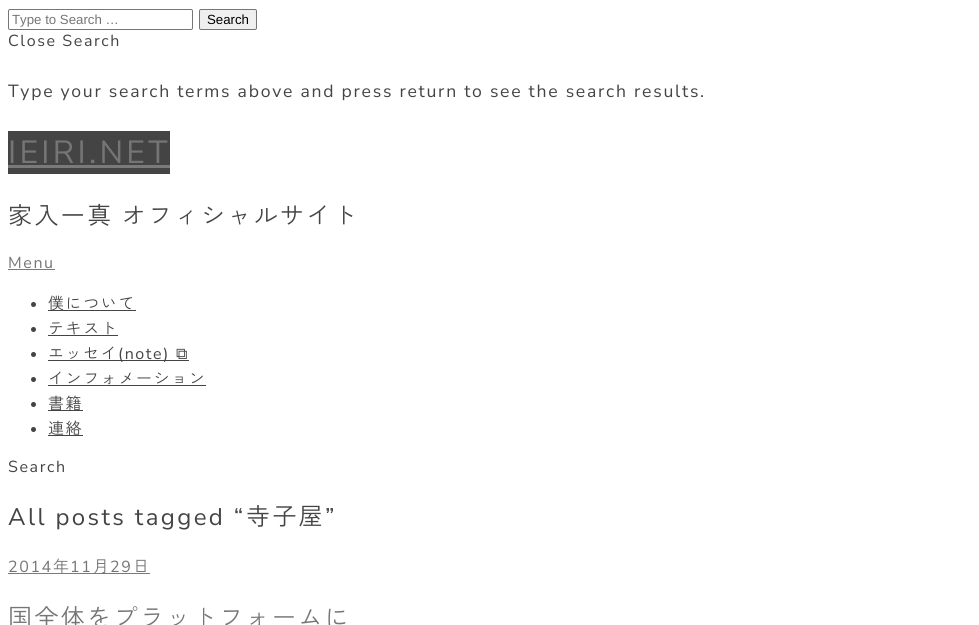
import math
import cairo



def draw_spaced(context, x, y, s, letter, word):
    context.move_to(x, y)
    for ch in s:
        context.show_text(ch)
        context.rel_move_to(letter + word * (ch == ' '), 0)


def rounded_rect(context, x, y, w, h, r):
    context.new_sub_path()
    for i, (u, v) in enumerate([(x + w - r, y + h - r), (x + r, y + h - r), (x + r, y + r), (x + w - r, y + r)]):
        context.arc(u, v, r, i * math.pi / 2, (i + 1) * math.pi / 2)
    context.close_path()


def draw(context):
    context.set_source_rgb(1, 1, 1)
    context.paint()
    rounded_rect(context, 8.5, 9.5, 184, 20, 1.5)
    context.set_source_rgb(118 / 255, 118 / 255, 118 / 255)
    context.set_line_width(1)
    context.stroke()
    context.set_source_rgb(239 / 255, 239 / 255, 239 / 255)
    rounded_rect(context, 199.5, 9.5, 57, 20, 1.5)
    context.fill_preserve()
    context.set_source_rgb(118 / 255, 118 / 255, 118 / 255)
    context.stroke()
    context.set_source_rgb(68 / 255, 68 / 255, 68 / 255)
    context.rectangle(8, 131, 162, 43)
    context.fill()
    context.set_source_rgb(122 / 255, 122 / 255, 122 / 255)
    context.rectangle(8, 165, 162, 3)
    context.fill()
    context.rectangle(8, 269, 47, 1)
    context.fill()
    context.set_source_rgb(68 / 255, 68 / 255, 68 / 255)
    context.arc(33.5, 304.5, 2.5, 0, 2 * math.pi)
    context.fill()
    context.rectangle(48, 310, 88, 1)
    context.fill()
    context.arc(33.5, 329.5, 2.5, 0, 2 * math.pi)
    context.fill()
    context.rectangle(48, 335, 70, 1)
    context.fill()
    context.arc(33.5, 354.5, 2.5, 0, 2 * math.pi)
    context.fill()
    context.rectangle(48, 360, 141, 1)
    context.fill()
    context.arc(33.5, 379.5, 2.5, 0, 2 * math.pi)
    context.fill()
    context.rectangle(48, 385, 158, 1)
    context.fill()
    context.arc(33.5, 404.5, 2.5, 0, 2 * math.pi)
    context.fill()
    context.rectangle(48, 410, 35, 1)
    context.fill()
    context.arc(33.5, 429.5, 2.5, 0, 2 * math.pi)
    context.fill()
    context.rectangle(48, 435, 35, 1)
    context.fill()
    context.set_source_rgb(122 / 255, 122 / 255, 122 / 255)
    context.rectangle(8, 573, 142, 1)
    context.fill()
    context.select_font_face("Liberation Sans")
    context.set_font_size(13.25)
    context.set_source_rgb(117 / 255, 117 / 255, 117 / 255)
    context.move_to(12, 24)
    context.show_text("Type to Search …")
    context.set_source_rgb(0, 0, 0)
    context.move_to(207, 24)
    context.show_text("Search")
    context.select_font_face("Nunito Sans")
    context.set_font_size(16)
    context.set_source_rgb(68 / 255, 68 / 255, 68 / 255)
    draw_spaced(context, 8, 46, "Close Search", 1.6, 0)
    context.set_font_size(17.6)
    draw_spaced(context, 8, 97, "Type your search terms above and press return to see the search results.", 1.75, 0)
    context.set_font_size(32)
    context.set_source_rgb(117 / 255, 117 / 255, 117 / 255)
    draw_spaced(context, 8, 163, "IEIRI.NET", 3.25, 0)
    context.select_font_face("Zen Kaku Gothic New")
    context.set_font_size(24)
    context.set_source_rgb(68 / 255, 68 / 255, 68 / 255)
    draw_spaced(context, 8, 224, "家入一真 オフィシャルサイト", 2.4, -1)
    context.select_font_face("Nunito Sans")
    context.set_font_size(16)
    context.set_source_rgb(117 / 255, 117 / 255, 117 / 255)
    draw_spaced(context, 8, 268, "Menu", 1.6, 0)
    context.select_font_face("Zen Kaku Gothic New")
    context.set_source_rgb(68 / 255, 68 / 255, 68 / 255)
    draw_spaced(context, 48, 309, "僕について", 1.6, 0)
    draw_spaced(context, 48, 334, "テキスト", 1.6, 0)
    draw_spaced(context, 48, 359, "エッセイ", 1.6, 0)
    context.select_font_face("Nunito Sans")
    draw_spaced(context, 118, 359, "(note)", 1.6, 0)
    context.select_font_face("FreeSerif")
    draw_spaced(context, 176, 359, "⧉", 1.6, 0)
    context.select_font_face("Zen Kaku Gothic New")
    draw_spaced(context, 48, 384, "インフォメーション", 1.6, 0)
    draw_spaced(context, 48, 409, "書籍", 1.6, 0)
    draw_spaced(context, 48, 434, "連絡", 1.6, 0)
    context.select_font_face("Nunito Sans")
    draw_spaced(context, 8, 472, "Search", 1.6, 0)
    context.set_font_size(24)
    draw_spaced(context, 8, 525, "All posts tagged “", 2.4, 0)
    context.select_font_face("Zen Kaku Gothic New")
    draw_spaced(context, 246, 525, "寺子屋", 2.4, 0)
    context.select_font_face("Nunito Sans")
    draw_spaced(context, 325, 525, "”", 2.4, 0)
    context.set_font_size(16)
    context.set_source_rgb(117 / 255, 117 / 255, 117 / 255)
    draw_spaced(context, 8, 572, "2014", 1.6, 0)
    context.select_font_face("Zen Kaku Gothic New")
    draw_spaced(context, 53, 572, "年", 1.6, 0)
    context.select_font_face("Nunito Sans")
    draw_spaced(context, 70, 572, "11", 1.6, 0)
    context.select_font_face("Zen Kaku Gothic New")
    draw_spaced(context, 93, 572, "月", 1.6, 0)
    context.select_font_face("Nunito Sans")
    draw_spaced(context, 110, 572, "29", 1.6, 0)
    context.select_font_face("Zen Kaku Gothic New")
    draw_spaced(context, 133, 572, "日", 1.6, 0)
    context.set_font_size(24)
    draw_spaced(context, 8, 626, "国全体をプラットフォームに", 2.4, 0)


surface = cairo.ImageSurface(cairo.Format.RGB24, 979, 625)
context = cairo.Context(surface)
options = cairo.FontOptions()
options.set_hint_metrics(cairo.HintMetrics.OFF)
options.set_hint_style(cairo.HintStyle.NONE)
context.set_font_options(options)
context.set_miter_limit(4)
draw(context)
surface.write_to_png("out.png")
